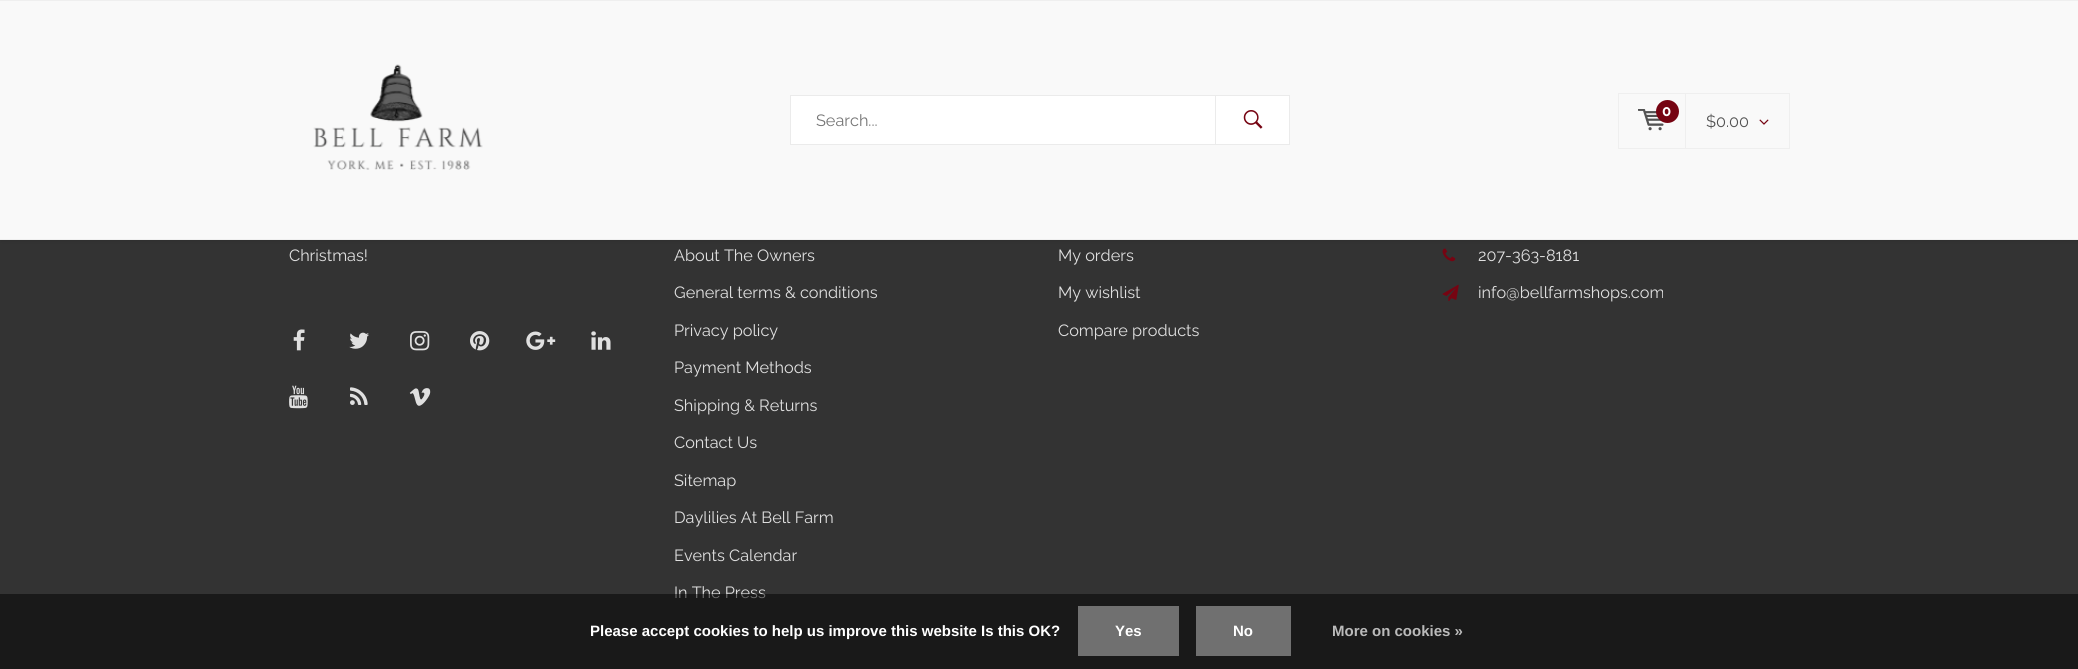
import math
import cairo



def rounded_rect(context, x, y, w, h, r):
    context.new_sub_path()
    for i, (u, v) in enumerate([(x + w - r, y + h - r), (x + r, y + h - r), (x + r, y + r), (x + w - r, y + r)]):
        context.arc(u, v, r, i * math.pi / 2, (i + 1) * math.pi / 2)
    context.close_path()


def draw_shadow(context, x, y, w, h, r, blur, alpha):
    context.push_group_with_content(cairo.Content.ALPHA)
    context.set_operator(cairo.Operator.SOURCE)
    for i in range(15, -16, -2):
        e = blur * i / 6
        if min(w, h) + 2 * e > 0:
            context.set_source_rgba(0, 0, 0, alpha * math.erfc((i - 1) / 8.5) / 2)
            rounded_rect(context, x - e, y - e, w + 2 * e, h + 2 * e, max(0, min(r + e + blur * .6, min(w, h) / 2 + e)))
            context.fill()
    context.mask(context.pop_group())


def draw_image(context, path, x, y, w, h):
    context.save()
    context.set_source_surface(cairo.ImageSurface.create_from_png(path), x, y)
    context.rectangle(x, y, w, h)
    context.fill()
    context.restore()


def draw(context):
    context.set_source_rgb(51 / 255, 51 / 255, 51 / 255)
    context.paint()
    draw_image(context, "images/14.png", 1442, 248, 14, 14)
    context.set_source_rgb(0, 0, 0)
    draw_shadow(context, 1, 1, 2077, 238, 0, 3, 0.2)
    context.set_source_rgb(249 / 255, 249 / 255, 249 / 255)
    context.rectangle(0, 1, 2078, 238)
    context.fill()
    context.set_source_rgb(239 / 255, 239 / 255, 239 / 255)
    context.rectangle(0, 0, 2078, 1)
    context.fill()
    context.rectangle(0, 239, 2078, 1)
    context.fill()
    draw_image(context, "images/1.png", 313, 64, 170, 106)
    context.set_source_rgb(1, 1, 1)
    context.rectangle(790.5, 95.5, 499, 49)
    context.fill_preserve()
    context.set_source_rgb(235 / 255, 235 / 255, 235 / 255)
    context.set_line_width(1)
    context.stroke()
    context.rectangle(1215, 95, 1, 50)
    context.fill()
    draw_image(context, "images/2.png", 1243, 110, 20, 19)
    context.rectangle(1618.5, 93.5, 67, 55)
    context.set_source_rgb(239 / 255, 239 / 255, 239 / 255)
    context.stroke()
    draw_image(context, "images/3.png", 1638, 109, 26, 22)
    context.set_source_rgb(118 / 255, 4 / 255, 18 / 255)
    context.arc(1667.5, 111.5, 11.5, 0, 2 * math.pi)
    context.fill()
    context.set_source_rgb(239 / 255, 239 / 255, 239 / 255)
    context.rectangle(1686, 93, 104, 1)
    context.fill()
    context.rectangle(1789, 93, 1, 56)
    context.fill()
    context.rectangle(1686, 148, 104, 1)
    context.fill()
    draw_image(context, "images/4.png", 1759, 119, 10, 6)
    draw_image(context, "images/5.png", 293, 329, 12, 22)
    draw_image(context, "images/6.png", 349, 332, 20, 17)
    draw_image(context, "images/7.png", 410, 331, 20, 20)
    draw_image(context, "images/8.png", 470, 331, 20, 20)
    draw_image(context, "images/9.png", 526, 331, 30, 19)
    draw_image(context, "images/10.png", 591, 331, 20, 19)
    draw_image(context, "images/11.png", 289, 385, 19, 24)
    draw_image(context, "images/12.png", 350, 387, 18, 18)
    draw_image(context, "images/13.png", 409, 388, 22, 18)
    draw_image(context, "images/15.png", 1442, 284, 17, 17)
    context.select_font_face("Raleway")
    context.set_font_size(16.25)
    context.set_source_rgb(117 / 255, 117 / 255, 117 / 255)
    context.move_to(816, 126)
    context.show_text("Search...")
    context.select_font_face("Raleway", cairo.FontSlant.NORMAL, cairo.FontWeight.BOLD)
    context.set_font_size(15)
    context.set_source_rgb(1, 1, 1)
    context.move_to(1662, 116)
    context.show_text("0")
    context.select_font_face("Raleway")
    context.set_font_size(16.25)
    context.set_source_rgb(82 / 255, 82 / 255, 82 / 255)
    context.move_to(1706, 127)
    context.show_text("$0.00")
    context.set_source_rgb(224 / 255, 224 / 255, 224 / 255)
    context.move_to(289, 261)
    context.show_text("Christmas!")
    context.move_to(674, 261)
    context.show_text("About The Owners")
    context.move_to(674, 298)
    context.show_text("General terms & conditions")
    context.move_to(674, 336)
    context.show_text("Privacy policy")
    context.move_to(674, 373)
    context.show_text("Payment Methods")
    context.move_to(674, 411)
    context.show_text("Shipping & Returns")
    context.move_to(674, 448)
    context.show_text("Contact Us")
    context.move_to(674, 486)
    context.show_text("Sitemap")
    context.move_to(674, 523)
    context.show_text("Daylilies At Bell Farm")
    context.move_to(674, 561)
    context.show_text("Events Calendar")
    context.move_to(674, 598)
    context.show_text("In The Press")
    context.move_to(1058, 261)
    context.show_text("My orders")
    context.move_to(1058, 298)
    context.show_text("My wishlist")
    context.move_to(1058, 336)
    context.show_text("Compare products")
    context.move_to(1478, 261)
    context.show_text("207-363-8181")
    context.move_to(1478, 298)
    context.show_text("info@bellfarmshops.com")
    context.set_source_rgba(0, 0, 0, 0.5)
    context.rectangle(0, 594, 2078, 75)
    context.fill()
    context.select_font_face("Liberation Sans", cairo.FontSlant.NORMAL, cairo.FontWeight.BOLD)
    context.set_font_size(15)
    context.set_source_rgb(1, 1, 1)
    context.move_to(590, 636)
    context.show_text("Please accept cookies to help us improve this website Is this OK?")
    context.set_source_rgb(112 / 255, 112 / 255, 112 / 255)
    context.rectangle(1078, 606, 101, 50)
    context.fill()
    context.set_source_rgb(1, 1, 1)
    context.move_to(1115, 636)
    context.show_text("Yes")
    context.set_source_rgb(112 / 255, 112 / 255, 112 / 255)
    context.rectangle(1196, 606, 95, 50)
    context.fill()
    context.set_source_rgb(1, 1, 1)
    context.move_to(1233, 636)
    context.show_text("No")
    context.set_source_rgb(186 / 255, 186 / 255, 186 / 255)
    context.move_to(1332, 636)
    context.show_text("More on cookies »")


surface = cairo.ImageSurface(cairo.Format.RGB24, 2078, 669)
context = cairo.Context(surface)
options = cairo.FontOptions()
options.set_hint_metrics(cairo.HintMetrics.OFF)
options.set_hint_style(cairo.HintStyle.NONE)
context.set_font_options(options)
context.set_miter_limit(4)
draw(context)
surface.write_to_png("out.png")
